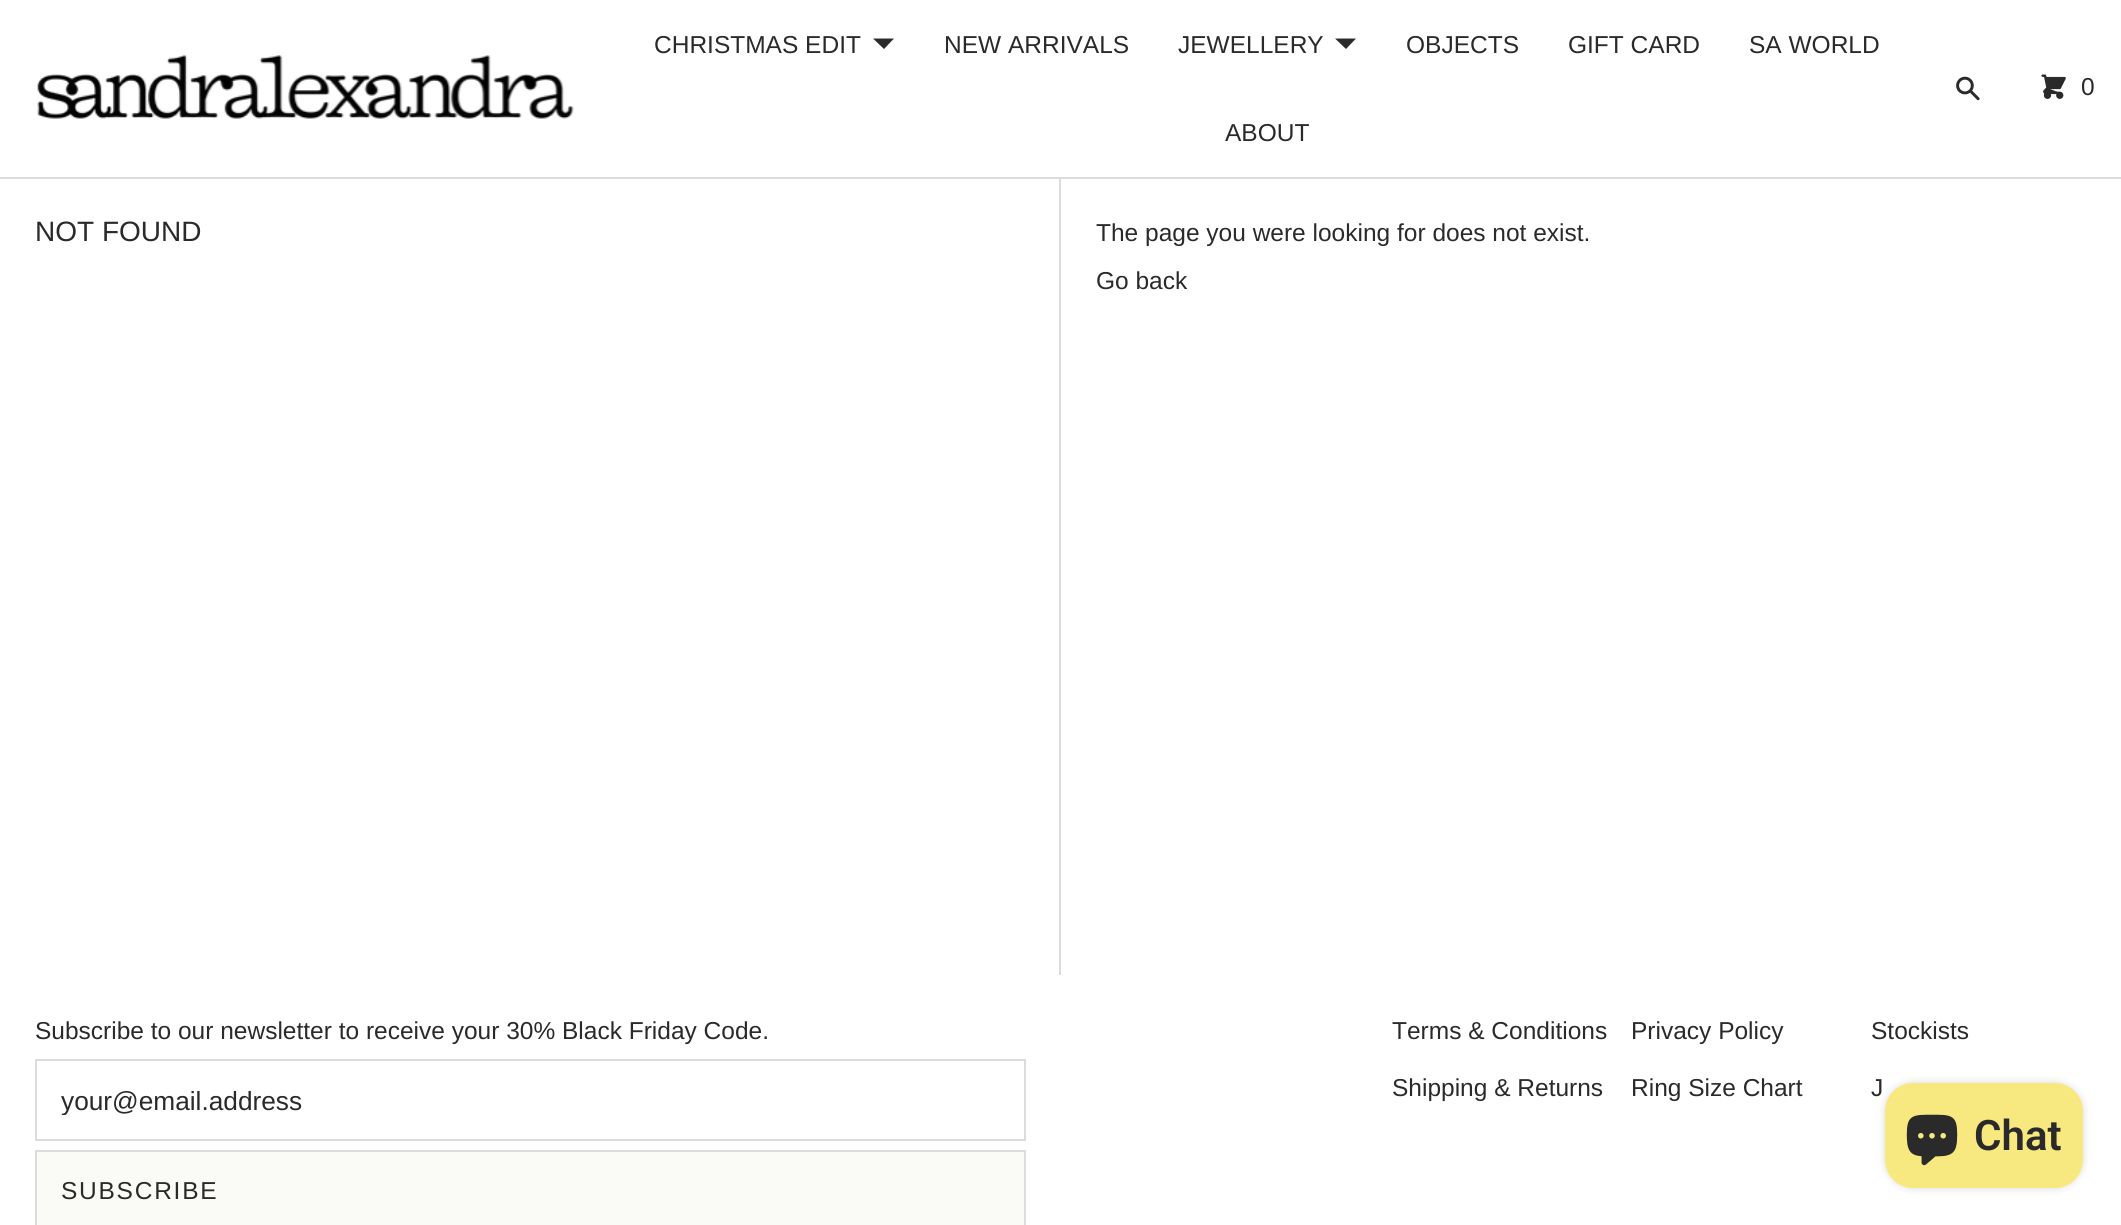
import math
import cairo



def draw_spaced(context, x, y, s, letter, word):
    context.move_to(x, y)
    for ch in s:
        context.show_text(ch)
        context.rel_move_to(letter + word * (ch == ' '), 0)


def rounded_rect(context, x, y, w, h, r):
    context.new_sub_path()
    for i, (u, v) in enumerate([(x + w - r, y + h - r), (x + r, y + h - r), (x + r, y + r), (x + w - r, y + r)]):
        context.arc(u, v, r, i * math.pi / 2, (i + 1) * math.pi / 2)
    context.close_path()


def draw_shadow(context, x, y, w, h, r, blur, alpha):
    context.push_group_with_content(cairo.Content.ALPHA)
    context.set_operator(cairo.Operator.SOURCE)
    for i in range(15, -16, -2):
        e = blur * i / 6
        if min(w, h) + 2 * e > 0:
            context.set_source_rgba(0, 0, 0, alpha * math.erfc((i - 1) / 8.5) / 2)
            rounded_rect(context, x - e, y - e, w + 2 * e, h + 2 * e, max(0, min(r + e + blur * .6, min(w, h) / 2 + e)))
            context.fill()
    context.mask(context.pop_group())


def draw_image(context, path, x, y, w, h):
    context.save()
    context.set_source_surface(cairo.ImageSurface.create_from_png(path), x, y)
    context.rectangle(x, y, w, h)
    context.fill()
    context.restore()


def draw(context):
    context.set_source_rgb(1, 1, 1)
    context.paint()
    context.set_source_rgb(220 / 255, 220 / 255, 220 / 255)
    context.rectangle(0, 177, 2121, 2)
    context.fill()
    draw_image(context, "images/1.png", 37, 55, 537, 64)
    context.set_source_rgb(42 / 255, 42 / 255, 42 / 255)
    context.new_path()
    context.move_to(873, 38.5)
    context.line_to(894, 38.5)
    context.line_to(884, 49)
    context.close_path()
    context.fill()
    context.new_path()
    context.move_to(1335, 38.5)
    context.line_to(1356, 38.5)
    context.line_to(1346, 49)
    context.close_path()
    context.fill()
    draw_image(context, "images/2.png", 1956, 76, 24, 25)
    draw_image(context, "images/3.png", 2041, 74, 25, 25)
    context.set_source_rgb(220 / 255, 220 / 255, 220 / 255)
    context.rectangle(1059, 179, 2, 796)
    context.fill()
    context.rectangle(36, 1060, 989, 80)
    context.stroke()
    context.set_source_rgb(250 / 255, 250 / 255, 247 / 255)
    context.rectangle(36, 1151, 989, 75)
    context.fill_preserve()
    context.set_source_rgb(220 / 255, 220 / 255, 220 / 255)
    context.stroke()
    context.set_source_rgb(0, 0, 0)
    draw_shadow(context, 1885, 1083, 198, 105, 28, 4.5, 0.15)
    context.set_source_rgb(248 / 255, 232 / 255, 128 / 255)
    rounded_rect(context, 1885, 1083, 198, 105, 28)
    context.fill()
    draw_image(context, "images/4.png", 1906, 1114, 52, 52)
    context.select_font_face("Liberation Sans")
    context.set_font_size(24.5)
    context.set_source_rgb(42 / 255, 42 / 255, 42 / 255)
    context.move_to(654, 53)
    context.show_text("CHRISTMAS EDIT")
    context.move_to(944, 53)
    context.show_text("NEW ARRIVALS")
    context.move_to(1178, 53)
    context.show_text("JEWELLERY")
    context.move_to(1406, 53)
    context.show_text("OBJECTS")
    context.move_to(1568, 53)
    context.show_text("GIFT CARD")
    context.move_to(1749, 53)
    context.show_text("SA WORLD")
    context.move_to(1225, 141)
    context.show_text("ABOUT")
    draw_spaced(context, 2081, 95, "0", 1.75, 0)
    context.set_font_size(28)
    context.move_to(35, 241)
    context.show_text("NOT FOUND")
    context.set_font_size(24.5)
    context.move_to(1096, 241)
    context.show_text("The page you were looking for does not exist.")
    context.move_to(1096, 289)
    context.show_text("Go back")
    context.move_to(35, 1039)
    context.show_text("Subscribe to our newsletter to receive your 30% Black Friday Code.")
    context.save()
    context.rectangle(61, 1085, 938, 30)
    context.clip()
    context.set_font_size(26.25)
    context.move_to(61, 1110)
    context.show_text("your@email.address")
    context.restore()
    draw_spaced(context, 61, 1199, "SUBSCRIBE", 1.75, 0)
    context.move_to(1392, 1039)
    context.show_text("Terms & Conditions")
    context.move_to(1631, 1039)
    context.show_text("Privacy Policy")
    context.move_to(1871, 1039)
    context.show_text("Stockists")
    context.move_to(1392, 1096)
    context.show_text("Shipping & Returns")
    context.move_to(1631, 1096)
    context.show_text("Ring Size Chart")
    context.move_to(1871, 1096)
    context.show_text("J")
    context.select_font_face("Roboto SemiBold")
    context.set_font_size(42)
    context.move_to(1974, 1150)
    context.show_text("Chat")


surface = cairo.ImageSurface(cairo.Format.RGB24, 2121, 1225)
context = cairo.Context(surface)
options = cairo.FontOptions()
options.set_hint_metrics(cairo.HintMetrics.OFF)
options.set_hint_style(cairo.HintStyle.NONE)
context.set_font_options(options)
context.set_miter_limit(4)
draw(context)
surface.write_to_png("out.png")
